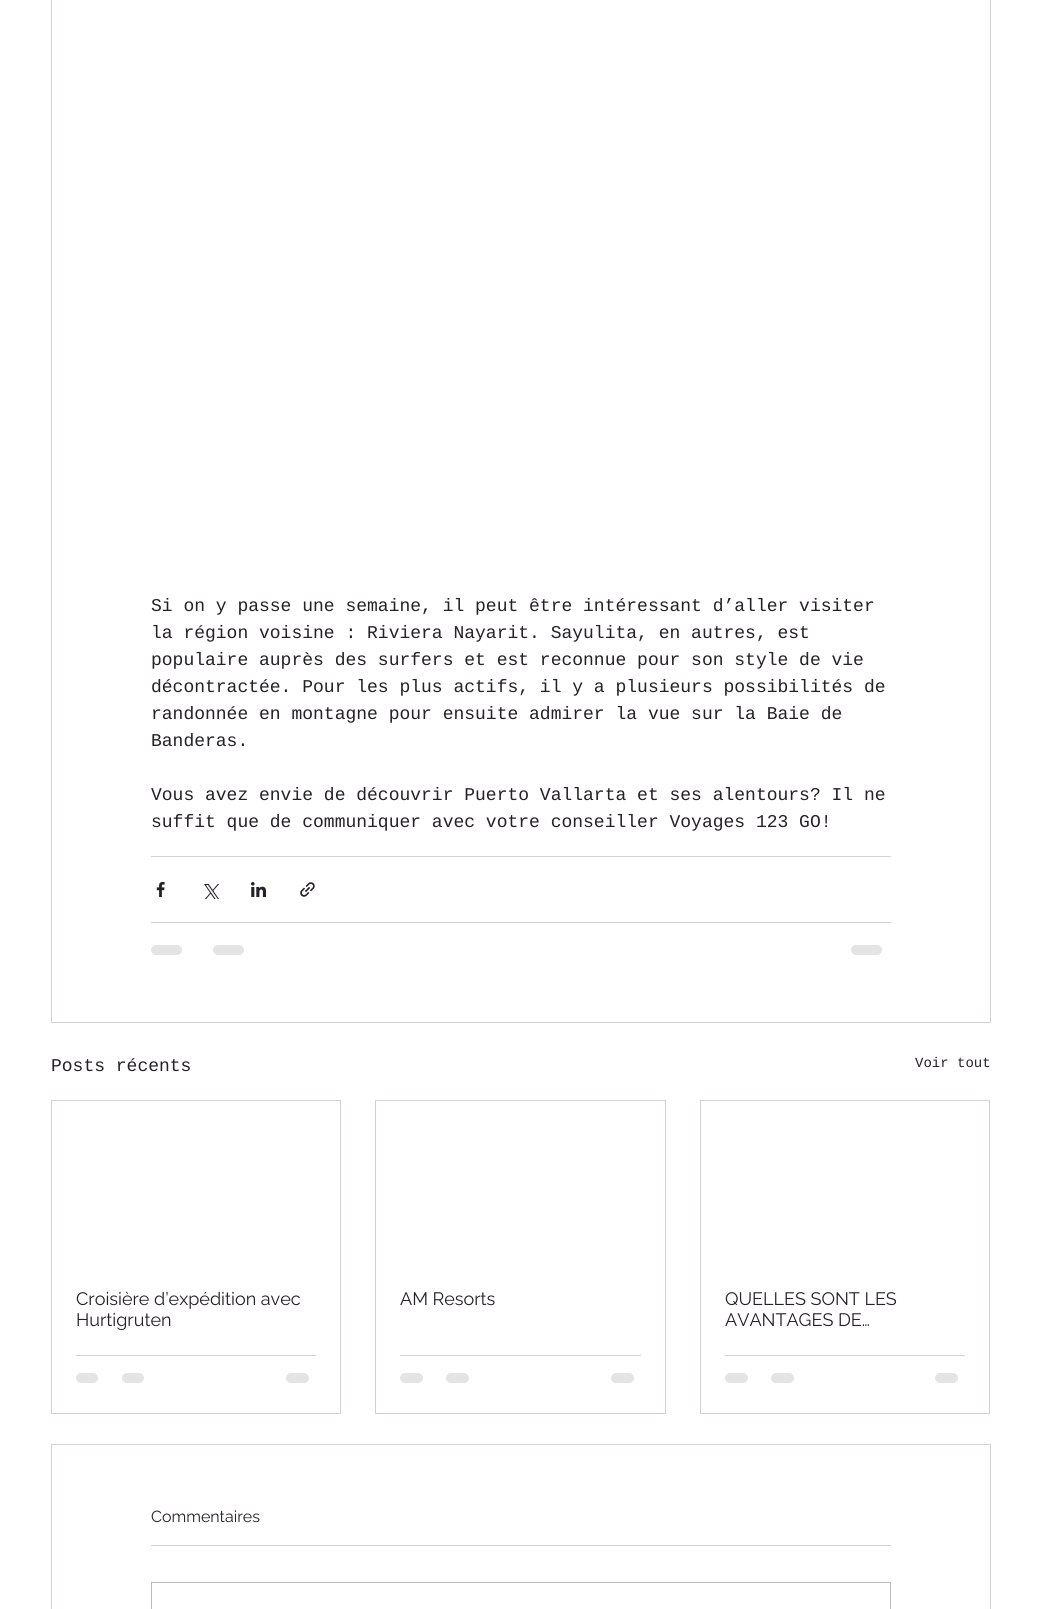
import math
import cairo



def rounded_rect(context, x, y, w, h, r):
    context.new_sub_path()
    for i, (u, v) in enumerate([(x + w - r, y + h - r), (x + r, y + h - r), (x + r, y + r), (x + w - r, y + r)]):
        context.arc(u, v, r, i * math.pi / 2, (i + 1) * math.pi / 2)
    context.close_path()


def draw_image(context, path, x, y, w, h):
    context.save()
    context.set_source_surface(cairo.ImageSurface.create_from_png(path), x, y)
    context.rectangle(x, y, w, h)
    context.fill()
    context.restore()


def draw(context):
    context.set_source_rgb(1, 1, 1)
    context.paint()
    context.rectangle(51.5, -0.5, 939, 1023)
    context.set_source_rgb(215 / 255, 206 / 255, 218 / 255)
    context.set_line_width(1)
    context.stroke()
    context.set_source_rgb(212 / 255, 210 / 255, 212 / 255)
    context.rectangle(151, 856, 740, 1)
    context.fill()
    draw_image(context, "images/1.png", 156, 882, 9, 15)
    draw_image(context, "images/2.png", 204, 884, 15, 15)
    draw_image(context, "images/3.png", 251, 882, 15, 15)
    draw_image(context, "images/4.png", 300, 882, 15, 15)
    context.rectangle(151, 922, 740, 1)
    context.fill()
    context.set_source_rgb(229 / 255, 228 / 255, 229 / 255)
    rounded_rect(context, 151, 945, 31, 10, 5)
    context.fill()
    rounded_rect(context, 213, 945, 31, 10, 5)
    context.fill()
    rounded_rect(context, 851, 945, 31, 10, 5)
    context.fill()
    context.rectangle(51.5, 1100.5, 289, 313)
    context.set_source_rgb(215 / 255, 206 / 255, 218 / 255)
    context.stroke()
    context.set_source_rgb(212 / 255, 210 / 255, 212 / 255)
    context.rectangle(76, 1355, 240, 1)
    context.fill()
    context.set_source_rgb(229 / 255, 228 / 255, 229 / 255)
    rounded_rect(context, 76, 1373, 22, 10, 5)
    context.fill()
    rounded_rect(context, 122, 1373, 22, 10, 5)
    context.fill()
    rounded_rect(context, 286, 1373, 23, 10, 5)
    context.fill()
    context.rectangle(375.5, 1100.5, 290, 313)
    context.set_source_rgb(215 / 255, 206 / 255, 218 / 255)
    context.stroke()
    context.set_source_rgb(212 / 255, 210 / 255, 212 / 255)
    context.rectangle(400, 1355, 241, 1)
    context.fill()
    context.set_source_rgb(229 / 255, 228 / 255, 229 / 255)
    rounded_rect(context, 400, 1373, 23, 10, 5)
    context.fill()
    rounded_rect(context, 446, 1373, 23, 10, 5)
    context.fill()
    rounded_rect(context, 611, 1373, 23, 10, 5)
    context.fill()
    context.rectangle(700.5, 1100.5, 289, 313)
    context.set_source_rgb(215 / 255, 206 / 255, 218 / 255)
    context.stroke()
    context.set_source_rgb(212 / 255, 210 / 255, 212 / 255)
    context.rectangle(725, 1355, 240, 1)
    context.fill()
    context.set_source_rgb(229 / 255, 228 / 255, 229 / 255)
    rounded_rect(context, 725, 1373, 23, 10, 5)
    context.fill()
    rounded_rect(context, 771, 1373, 23, 10, 5)
    context.fill()
    rounded_rect(context, 935, 1373, 23, 10, 5)
    context.fill()
    context.rectangle(51.5, 1444.5, 939, 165)
    context.set_source_rgb(215 / 255, 206 / 255, 218 / 255)
    context.stroke()
    context.set_source_rgb(212 / 255, 210 / 255, 212 / 255)
    context.rectangle(151, 1545, 740, 1)
    context.fill()
    context.rectangle(151.5, 1582.5, 739, 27)
    context.set_source_rgb(190 / 255, 188 / 255, 190 / 255)
    context.stroke()
    context.select_font_face("Liberation Mono")
    context.set_font_size(18)
    context.set_source_rgb(38 / 255, 32 / 255, 39 / 255)
    context.move_to(151, 611)
    context.show_text("Si on y passe une semaine, il peut être intéressant d’aller visiter")
    context.move_to(151, 638)
    context.show_text("la région voisine : Riviera Nayarit. Sayulita, en autres, est")
    context.move_to(151, 665)
    context.show_text("populaire auprès des surfers et est reconnue pour son style de vie")
    context.move_to(151, 692)
    context.show_text("décontractée. Pour les plus actifs, il y a plusieurs possibilités de")
    context.move_to(151, 719)
    context.show_text("randonnée en montagne pour ensuite admirer la vue sur la Baie de")
    context.move_to(151, 746)
    context.show_text("Banderas.")
    context.move_to(151, 800)
    context.show_text("Vous avez envie de découvrir Puerto Vallarta et ses alentours? Il ne")
    context.move_to(151, 827)
    context.show_text("suffit que de communiquer avec votre conseiller Voyages 123 GO!")
    context.move_to(51, 1071)
    context.show_text("Posts récents")
    context.set_font_size(14)
    context.move_to(915, 1067)
    context.show_text("Voir tout")
    context.select_font_face("Raleway")
    context.set_font_size(18)
    context.move_to(76, 1305)
    context.show_text("Croisière d’expédition avec")
    context.move_to(76, 1326)
    context.show_text("Hurtigruten")
    context.move_to(400, 1305)
    context.show_text("AM Resorts")
    context.move_to(725, 1305)
    context.show_text("QUELLES SONT LES")
    context.move_to(725, 1326)
    context.show_text("AVANTAGES DE…")
    context.set_font_size(16)
    context.move_to(151, 1522)
    context.show_text("Commentaires")


surface = cairo.ImageSurface(cairo.Format.RGB24, 1041, 1609)
context = cairo.Context(surface)
options = cairo.FontOptions()
options.set_hint_metrics(cairo.HintMetrics.OFF)
options.set_hint_style(cairo.HintStyle.NONE)
context.set_font_options(options)
context.set_miter_limit(4)
draw(context)
surface.write_to_png("out.png")
